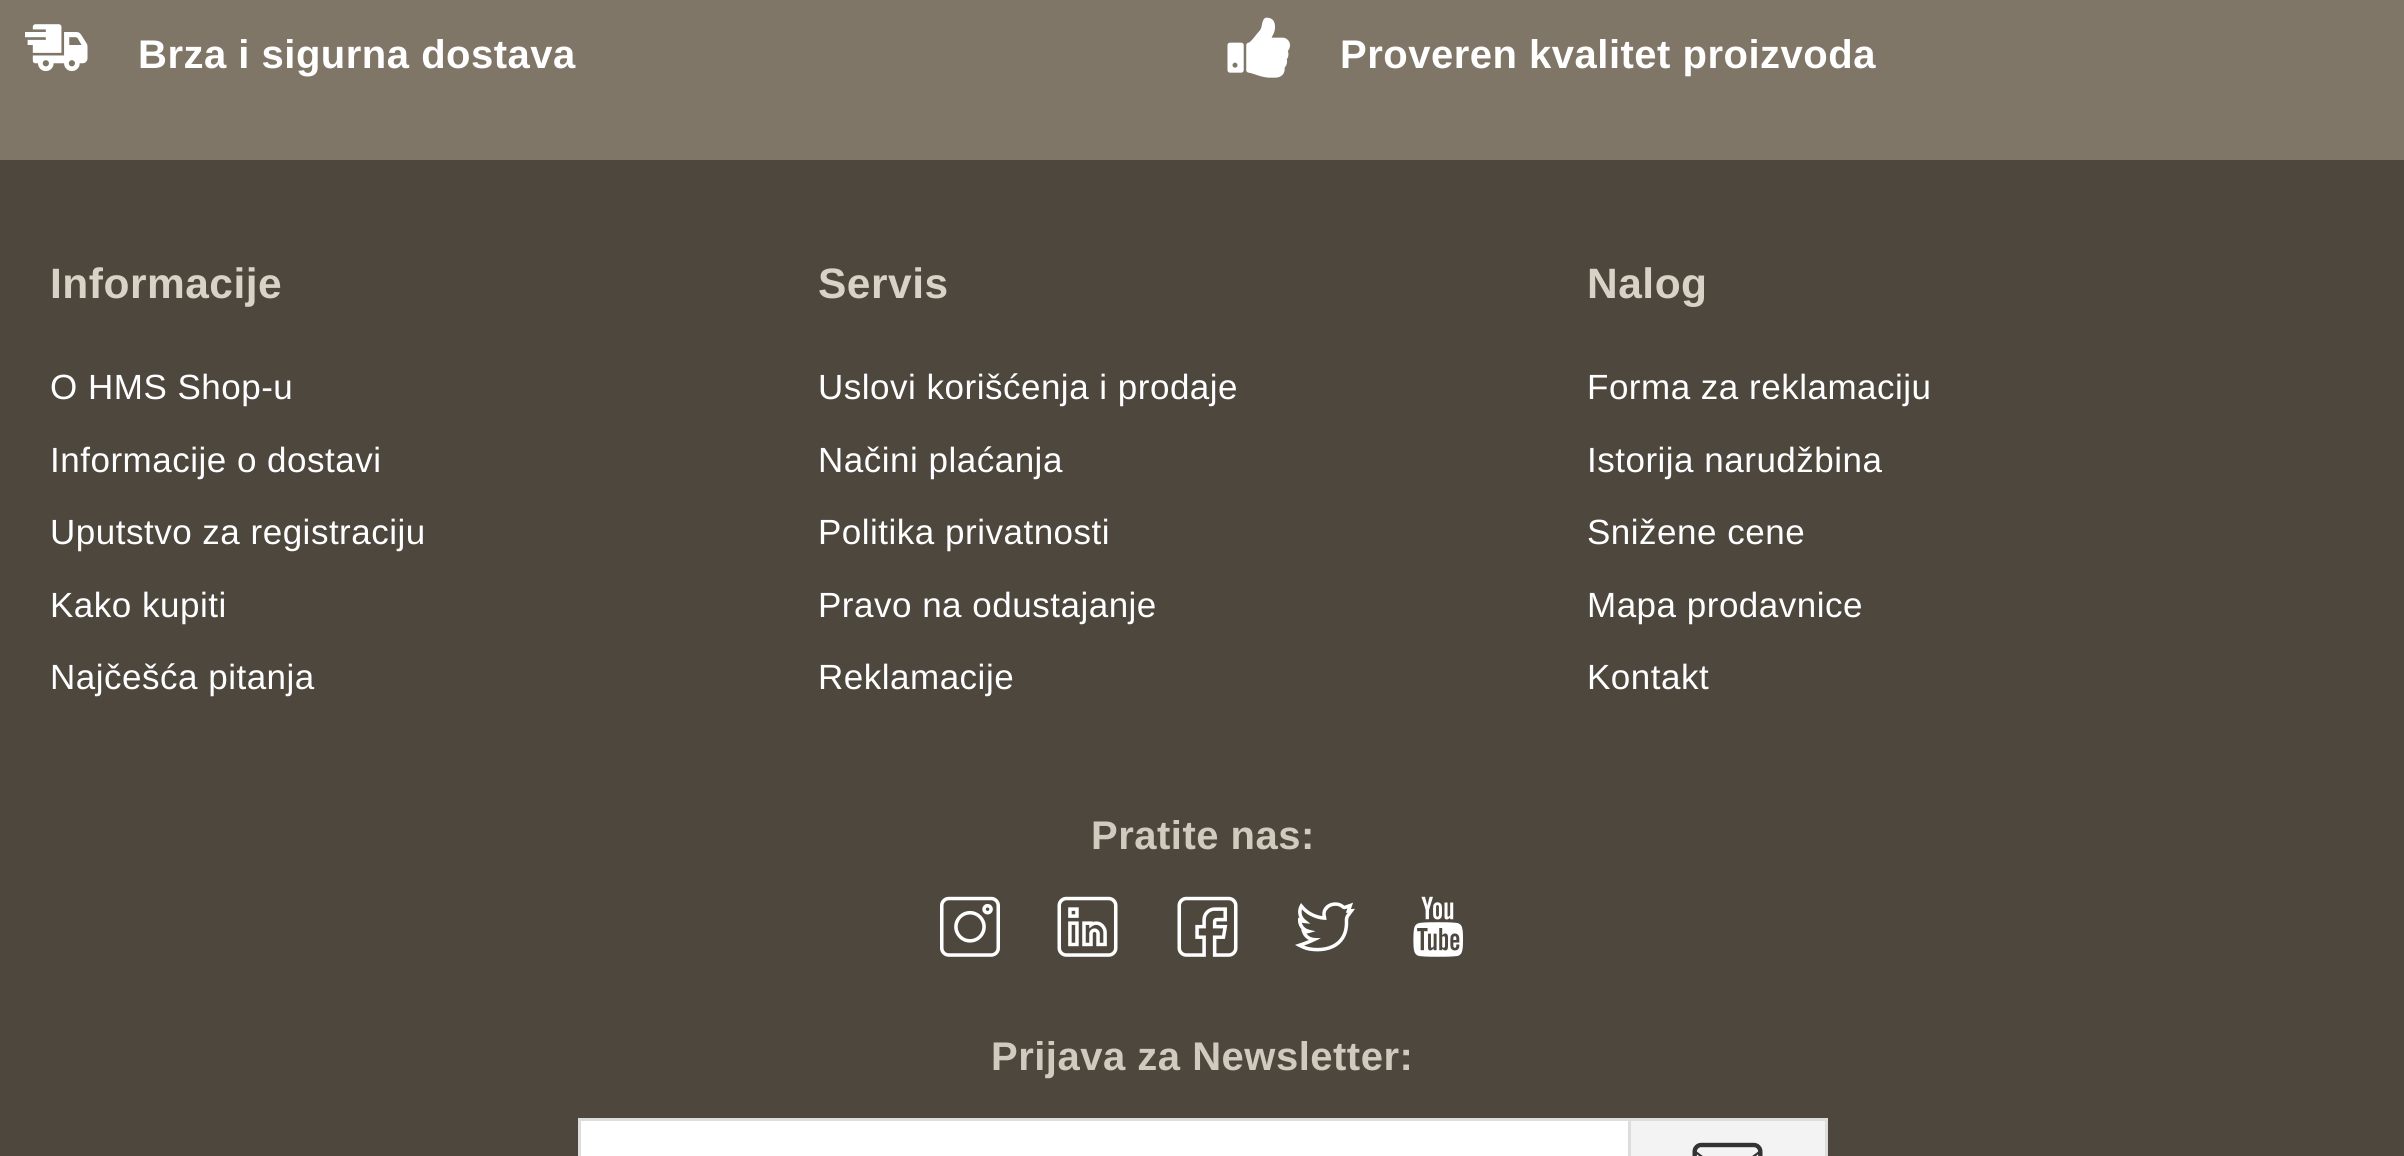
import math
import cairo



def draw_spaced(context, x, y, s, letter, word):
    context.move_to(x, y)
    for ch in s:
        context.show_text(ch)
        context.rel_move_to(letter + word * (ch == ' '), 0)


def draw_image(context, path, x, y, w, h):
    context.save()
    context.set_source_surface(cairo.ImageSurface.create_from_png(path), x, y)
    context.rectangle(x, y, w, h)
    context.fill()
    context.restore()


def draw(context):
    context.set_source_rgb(77 / 255, 71 / 255, 62 / 255)
    context.paint()
    context.set_source_rgb(128 / 255, 118 / 255, 103 / 255)
    context.rectangle(0, 0, 2404, 160)
    context.fill()
    draw_image(context, "images/1.png", 25, 24, 63, 48)
    draw_image(context, "images/2.png", 1227, 17, 63, 61)
    draw_image(context, "images/3.png", 940, 896, 60, 61)
    draw_image(context, "images/4.png", 1057, 896, 61, 61)
    draw_image(context, "images/5.png", 1177, 896, 61, 61)
    draw_image(context, "images/6.png", 1295, 902, 60, 50)
    draw_image(context, "images/7.png", 1413, 896, 50, 61)
    context.set_source_rgb(1, 1, 1)
    context.rectangle(581, 1121, 1047, 35)
    context.fill()
    context.rectangle(579.5, 1119.5, 1247, 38)
    context.set_source_rgb(221 / 255, 221 / 255, 221 / 255)
    context.set_line_width(3)
    context.stroke()
    context.set_source_rgb(243 / 255, 243 / 255, 243 / 255)
    context.rectangle(1629.5, 1119.5, 197, 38)
    context.fill_preserve()
    context.set_source_rgb(221 / 255, 221 / 255, 221 / 255)
    context.stroke()
    draw_image(context, "images/8.png", 1692, 1142, 71, 14)
    context.select_font_face("Liberation Sans", cairo.FontSlant.NORMAL, cairo.FontWeight.BOLD)
    context.set_font_size(40)
    context.set_source_rgb(1, 1, 1)
    draw_spaced(context, 138, 68, "Brza i sigurna dostava", 0.5, 0)
    draw_spaced(context, 1340, 68, "Proveren kvalitet proizvoda", 0.5, 0)
    context.set_font_size(42.5)
    context.set_source_rgb(217 / 255, 210 / 255, 198 / 255)
    draw_spaced(context, 50, 298, "Informacije", 0.5, 0)
    context.select_font_face("Liberation Sans")
    context.set_font_size(35)
    context.set_source_rgb(1, 1, 1)
    draw_spaced(context, 50, 399, "O HMS Shop-u", 0.5, 0)
    draw_spaced(context, 50, 472, "Informacije o dostavi", 0.5, 0)
    draw_spaced(context, 50, 544, "Uputstvo za registraciju", 0.5, 0)
    draw_spaced(context, 50, 617, "Kako kupiti", 0.5, 0)
    draw_spaced(context, 50, 689, "Najčešća pitanja", 0.5, 0)
    context.select_font_face("Liberation Sans", cairo.FontSlant.NORMAL, cairo.FontWeight.BOLD)
    context.set_font_size(42.5)
    context.set_source_rgb(217 / 255, 210 / 255, 198 / 255)
    draw_spaced(context, 818, 298, "Servis", 0.5, 0)
    context.select_font_face("Liberation Sans")
    context.set_font_size(35)
    context.set_source_rgb(1, 1, 1)
    draw_spaced(context, 818, 399, "Uslovi korišćenja i prodaje", 0.5, 0)
    draw_spaced(context, 818, 472, "Načini plaćanja", 0.5, 0)
    draw_spaced(context, 818, 544, "Politika privatnosti", 0.5, 0)
    draw_spaced(context, 818, 617, "Pravo na odustajanje", 0.5, 0)
    draw_spaced(context, 818, 689, "Reklamacije", 0.5, 0)
    context.select_font_face("Liberation Sans", cairo.FontSlant.NORMAL, cairo.FontWeight.BOLD)
    context.set_font_size(42.5)
    context.set_source_rgb(217 / 255, 210 / 255, 198 / 255)
    draw_spaced(context, 1587, 298, "Nalog", 0.5, 0)
    context.select_font_face("Liberation Sans")
    context.set_font_size(35)
    context.set_source_rgb(1, 1, 1)
    draw_spaced(context, 1587, 399, "Forma za reklamaciju", 0.5, 0)
    draw_spaced(context, 1587, 472, "Istorija narudžbina", 0.5, 0)
    draw_spaced(context, 1587, 544, "Snižene cene", 0.5, 0)
    draw_spaced(context, 1587, 617, "Mapa prodavnice", 0.5, 0)
    draw_spaced(context, 1587, 689, "Kontakt", 0.5, 0)
    context.select_font_face("Liberation Sans", cairo.FontSlant.NORMAL, cairo.FontWeight.BOLD)
    context.set_font_size(40)
    context.set_source_rgb(209 / 255, 202 / 255, 190 / 255)
    draw_spaced(context, 1091, 849, "Pratite nas:", 0.5, 0)
    draw_spaced(context, 991, 1070, "Prijava za Newsletter:", 0.5, 0)


surface = cairo.ImageSurface(cairo.Format.RGB24, 2404, 1156)
context = cairo.Context(surface)
options = cairo.FontOptions()
options.set_hint_metrics(cairo.HintMetrics.OFF)
options.set_hint_style(cairo.HintStyle.NONE)
context.set_font_options(options)
context.set_miter_limit(4)
draw(context)
surface.write_to_png("out.png")
